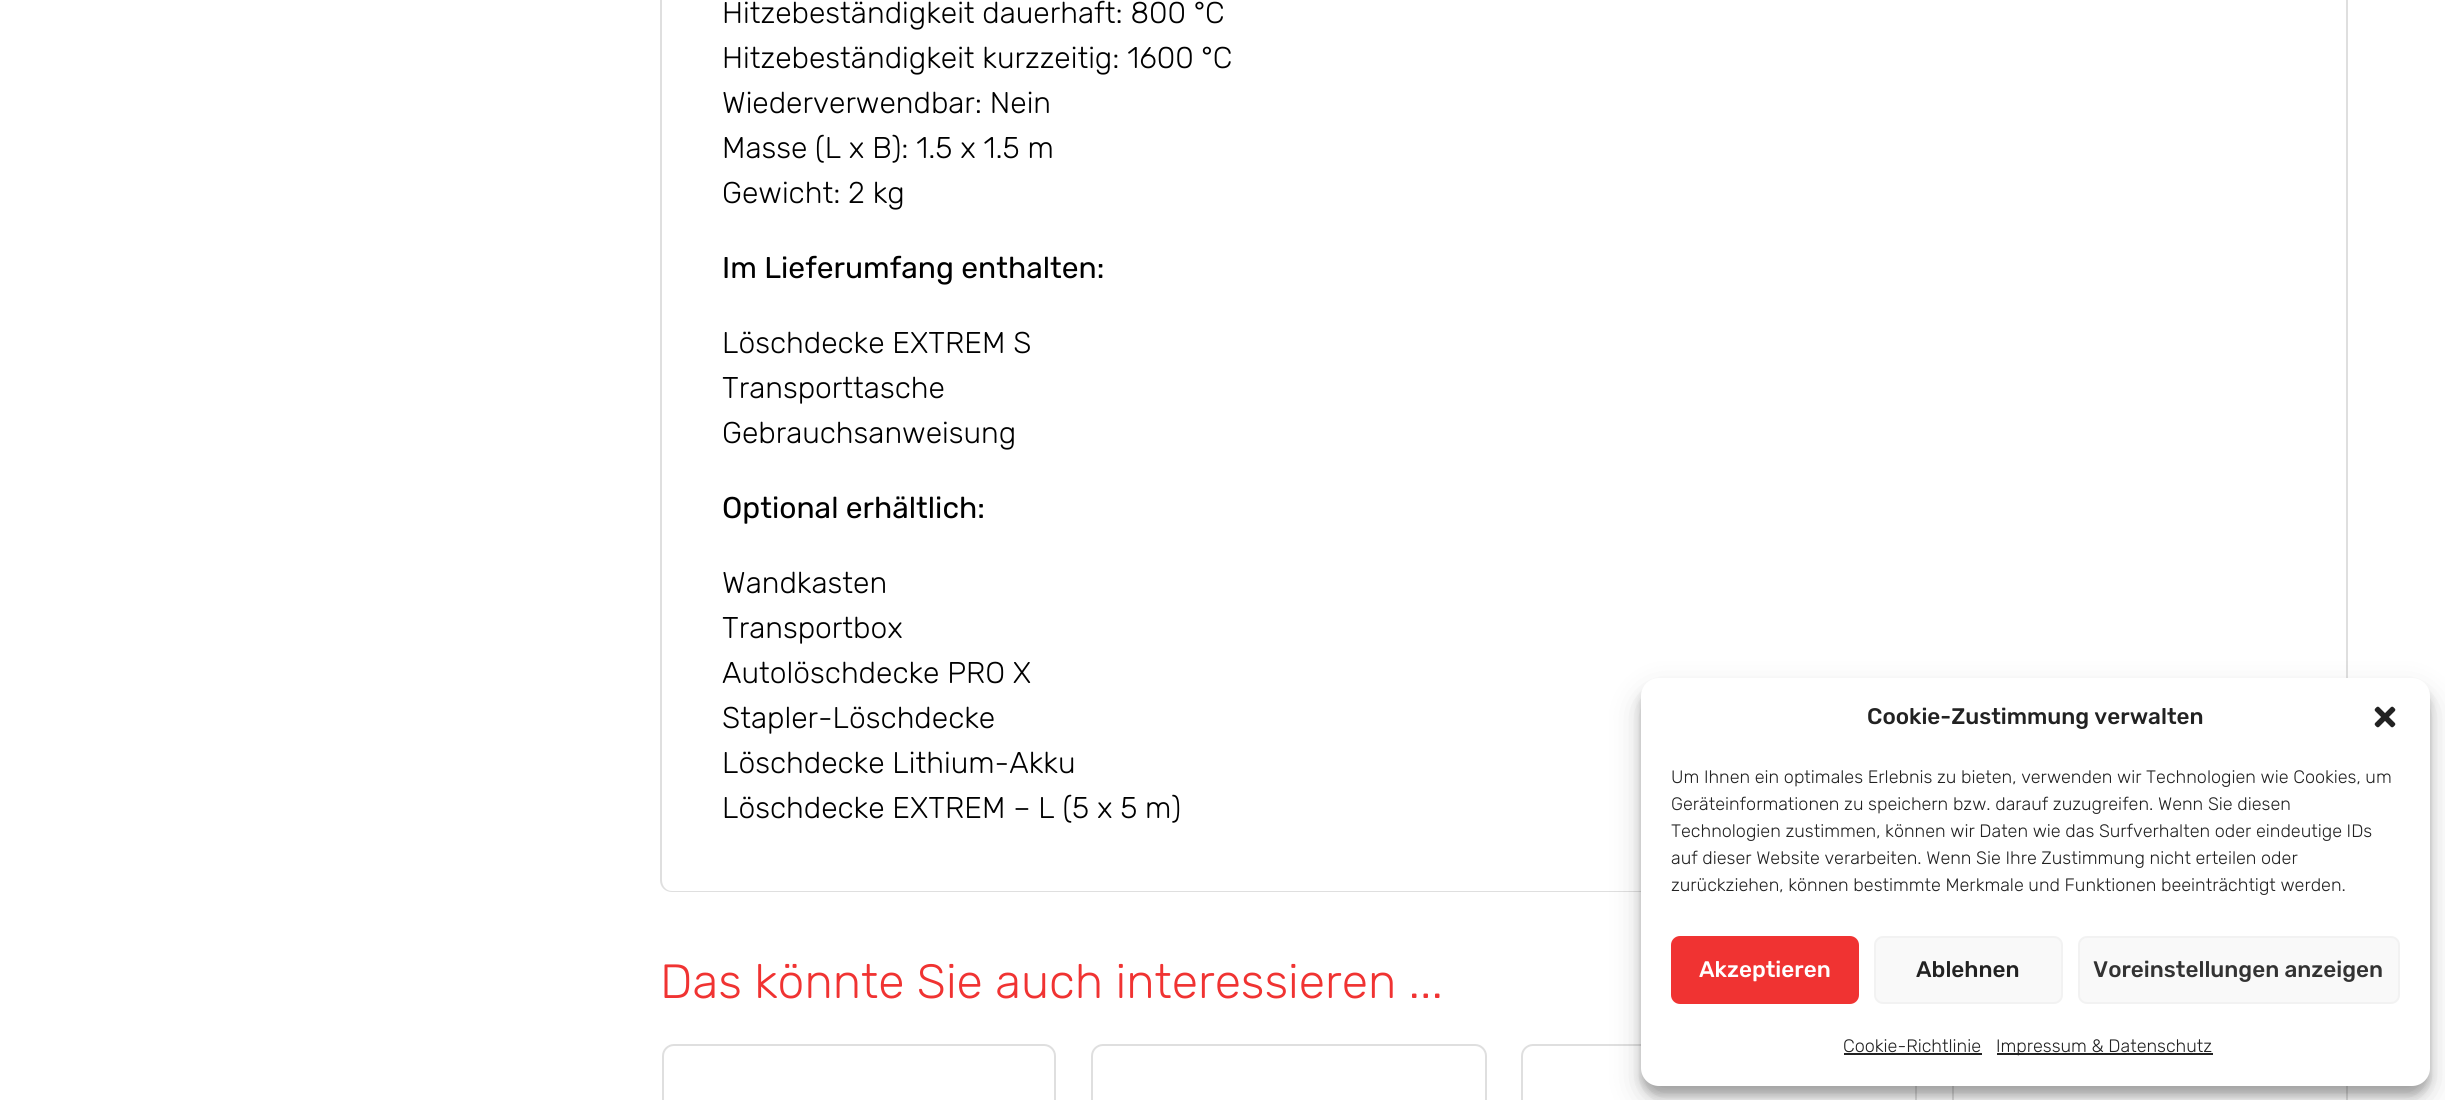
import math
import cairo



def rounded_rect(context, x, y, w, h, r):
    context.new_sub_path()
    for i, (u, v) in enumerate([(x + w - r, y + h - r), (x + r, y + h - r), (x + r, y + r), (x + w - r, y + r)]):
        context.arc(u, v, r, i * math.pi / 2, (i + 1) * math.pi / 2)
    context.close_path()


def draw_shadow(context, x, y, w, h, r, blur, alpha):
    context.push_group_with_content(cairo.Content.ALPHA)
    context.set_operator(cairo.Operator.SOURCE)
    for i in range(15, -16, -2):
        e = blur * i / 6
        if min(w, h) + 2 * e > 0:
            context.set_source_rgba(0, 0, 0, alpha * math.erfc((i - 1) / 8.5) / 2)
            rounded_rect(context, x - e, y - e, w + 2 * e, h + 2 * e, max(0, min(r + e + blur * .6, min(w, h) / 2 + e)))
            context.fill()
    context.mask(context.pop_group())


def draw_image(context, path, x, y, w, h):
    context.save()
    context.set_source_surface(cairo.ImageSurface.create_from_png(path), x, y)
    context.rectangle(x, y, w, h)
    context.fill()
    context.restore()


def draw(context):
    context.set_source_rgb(1, 1, 1)
    context.paint()
    context.set_source_rgb(223 / 255, 223 / 255, 223 / 255)
    context.set_fill_rule(cairo.FillRule.EVEN_ODD)
    context.new_path()
    context.move_to(660, -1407)
    context.line_to(2348, -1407)
    context.line_to(2348, 880)
    context.curve_to(2348, 887, 2342, 892, 2336, 892)
    context.line_to(672, 892)
    context.curve_to(665, 892, 660, 887, 660, 880)
    context.close_path()
    context.move_to(662, -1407)
    context.line_to(2346, -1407)
    context.line_to(2346, 880)
    context.curve_to(2346, 886, 2341, 891, 2336, 891)
    context.line_to(672, 891)
    context.curve_to(666, 891, 662, 886, 662, 880)
    context.close_path()
    context.fill()
    rounded_rect(context, 663, 1045, 392, 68, 11)
    context.stroke()
    rounded_rect(context, 1092, 1045, 394, 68, 11)
    context.stroke()
    rounded_rect(context, 1522, 1045, 394, 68, 11)
    context.stroke()
    context.rectangle(1953, 1045, 394, 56)
    context.stroke()
    context.set_source_rgb(0, 0, 0)
    draw_shadow(context, 1641, 687, 789, 408, 18, 4.5, 0.23)
    draw_shadow(context, 1641, 693, 789, 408, 18, 15, 0.19)
    context.set_source_rgb(1, 1, 1)
    rounded_rect(context, 1641, 678, 789, 408, 18)
    context.fill()
    draw_image(context, "images/1.png", 2374, 706, 22, 22)
    context.set_source_rgb(240 / 255, 51 / 255, 50 / 255)
    rounded_rect(context, 1672, 937, 186, 66, 8)
    context.fill_preserve()
    context.stroke()
    context.set_source_rgb(249 / 255, 249 / 255, 249 / 255)
    rounded_rect(context, 1875, 937, 187, 66, 8)
    context.fill_preserve()
    context.set_source_rgb(242 / 255, 242 / 255, 242 / 255)
    context.stroke()
    context.set_source_rgb(249 / 255, 249 / 255, 249 / 255)
    rounded_rect(context, 2079, 937, 320, 66, 8)
    context.fill_preserve()
    context.set_source_rgb(242 / 255, 242 / 255, 242 / 255)
    context.stroke()
    context.set_source_rgb(34 / 255, 34 / 255, 34 / 255)
    context.rectangle(1844, 1053, 138, 2)
    context.fill()
    context.rectangle(1997, 1053, 216, 2)
    context.fill()
    context.select_font_face("Rubik Light")
    context.set_font_size(30)
    context.set_source_rgb(0, 0, 0)
    context.move_to(722, 23)
    context.show_text("Hitzebeständigkeit dauerhaft: 800 °C")
    context.move_to(722, 68)
    context.show_text("Hitzebeständigkeit kurzzeitig: 1600 °C")
    context.move_to(722, 113)
    context.show_text("Wiederverwendbar: Nein")
    context.move_to(722, 158)
    context.show_text("Masse (L x B): 1.5 x 1.5 m")
    context.move_to(722, 203)
    context.show_text("Gewicht: 2 kg")
    context.select_font_face("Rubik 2 Light")
    context.move_to(722, 278)
    context.show_text("Im Lieferumfang enthalten:")
    context.select_font_face("Rubik Light")
    context.move_to(722, 353)
    context.show_text("Löschdecke EXTREM S")
    context.move_to(722, 398)
    context.show_text("Transporttasche")
    context.move_to(722, 443)
    context.show_text("Gebrauchsanweisung")
    context.select_font_face("Rubik 2 Light")
    context.move_to(722, 518)
    context.show_text("Optional erhältlich:")
    context.select_font_face("Rubik Light")
    context.move_to(722, 593)
    context.show_text("Wandkasten")
    context.move_to(722, 638)
    context.show_text("Transportbox")
    context.move_to(722, 683)
    context.show_text("Autolöschdecke PRO X")
    context.move_to(722, 728)
    context.show_text("Stapler-Löschdecke")
    context.move_to(722, 773)
    context.show_text("Löschdecke Lithium-Akku")
    context.move_to(722, 818)
    context.show_text("Löschdecke EXTREM – L (5 x 5 m)")
    context.set_font_size(48)
    context.set_source_rgb(240 / 255, 51 / 255, 50 / 255)
    context.move_to(660, 998)
    context.show_text("Das könnte Sie auch interessieren ...")
    context.select_font_face("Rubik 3 Light")
    context.set_font_size(22.5)
    context.set_source_rgb(34 / 255, 34 / 255, 34 / 255)
    context.move_to(1867, 724)
    context.show_text("Cookie-Zustimmung verwalten")
    context.select_font_face("Rubik Light")
    context.set_font_size(18)
    context.move_to(1671, 783)
    context.show_text("Um Ihnen ein optimales Erlebnis zu bieten, verwenden wir Technologien wie Cookies, um")
    context.move_to(1671, 810)
    context.show_text("Geräteinformationen zu speichern bzw. darauf zuzugreifen. Wenn Sie diesen")
    context.move_to(1671, 837)
    context.show_text("Technologien zustimmen, können wir Daten wie das Surfverhalten oder eindeutige IDs")
    context.move_to(1671, 864)
    context.show_text("auf dieser Website verarbeiten. Wenn Sie Ihre Zustimmung nicht erteilen oder")
    context.move_to(1671, 891)
    context.show_text("zurückziehen, können bestimmte Merkmale und Funktionen beeinträchtigt werden.")
    context.select_font_face("Rubik 3 Light")
    context.set_font_size(22.5)
    context.set_source_rgb(1, 1, 1)
    context.move_to(1699, 977)
    context.show_text("Akzeptieren")
    context.set_source_rgb(34 / 255, 34 / 255, 34 / 255)
    context.move_to(1916, 977)
    context.show_text("Ablehnen")
    context.set_source_rgb(51 / 255, 51 / 255, 51 / 255)
    context.move_to(2093, 977)
    context.show_text("Voreinstellungen anzeigen")
    context.select_font_face("Rubik Light")
    context.set_font_size(18)
    context.set_source_rgb(34 / 255, 34 / 255, 34 / 255)
    context.move_to(1843, 1052)
    context.show_text("Cookie-Richtlinie")
    context.move_to(1996, 1052)
    context.show_text("Impressum & Datenschutz")


surface = cairo.ImageSurface(cairo.Format.RGB24, 2445, 1100)
context = cairo.Context(surface)
options = cairo.FontOptions()
options.set_hint_metrics(cairo.HintMetrics.OFF)
options.set_hint_style(cairo.HintStyle.NONE)
context.set_font_options(options)
context.set_miter_limit(4)
draw(context)
surface.write_to_png("out.png")
